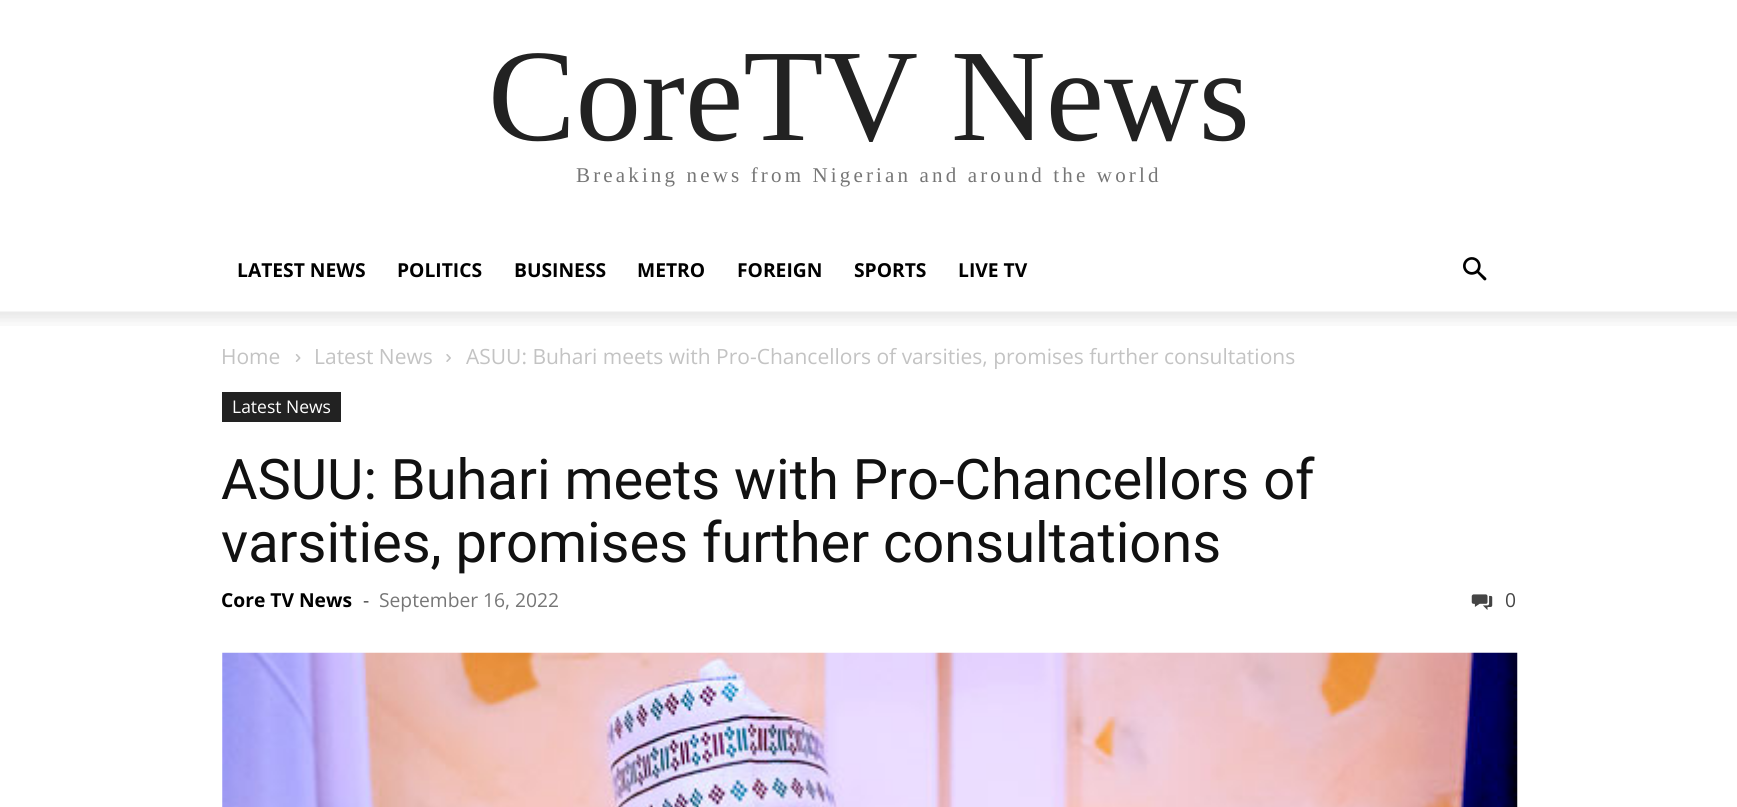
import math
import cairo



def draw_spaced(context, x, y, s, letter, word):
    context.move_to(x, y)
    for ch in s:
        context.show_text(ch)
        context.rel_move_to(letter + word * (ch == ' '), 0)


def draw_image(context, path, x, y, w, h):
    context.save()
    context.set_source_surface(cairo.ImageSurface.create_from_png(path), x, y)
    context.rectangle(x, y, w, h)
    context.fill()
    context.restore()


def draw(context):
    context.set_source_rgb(1, 1, 1)
    context.paint()
    draw_image(context, "images/1.png", 1463, 257, 24, 24)
    draw_image(context, "images/2.png", 0, 311, 1737, 15)
    draw_image(context, "images/3.png", 295, 354, 6, 8)
    draw_image(context, "images/4.png", 446, 354, 5, 8)
    context.set_source_rgb(34 / 255, 34 / 255, 34 / 255)
    context.rectangle(222, 392, 119, 30)
    context.fill()
    draw_image(context, "images/5.png", 1471, 594, 22, 16)
    draw_image(context, "images/6.png", 222, 652, 1296, 155)
    context.select_font_face("Liberation Serif")
    context.set_font_size(131.25)
    context.move_to(488, 140)
    context.show_text("CoreTV News")
    context.set_font_size(21)
    context.set_source_rgb(118 / 255, 118 / 255, 118 / 255)
    draw_spaced(context, 576, 182, "Breaking news from Nigerian and around the world", 3.15, 0)
    context.select_font_face("Open Sans", cairo.FontSlant.NORMAL, cairo.FontWeight.BOLD)
    context.set_font_size(19.25)
    context.set_source_rgb(0, 0, 0)
    context.move_to(237, 277)
    context.show_text("LATEST NEWS")
    context.move_to(397, 277)
    context.show_text("POLITICS")
    context.move_to(514, 277)
    context.show_text("BUSINESS")
    context.move_to(637, 277)
    context.show_text("METRO")
    context.move_to(737, 277)
    context.show_text("FOREIGN")
    context.move_to(854, 277)
    context.show_text("SPORTS")
    context.move_to(958, 277)
    context.show_text("LIVE TV")
    context.select_font_face("Open Sans")
    context.set_font_size(21)
    context.set_source_rgb(195 / 255, 195 / 255, 195 / 255)
    context.move_to(221, 364)
    context.show_text("Home")
    context.move_to(314, 364)
    context.show_text("Latest News")
    context.move_to(466, 364)
    context.show_text("ASUU: Buhari meets with Pro-Chancellors of varsities, promises further consultations")
    context.set_font_size(17.5)
    context.set_source_rgb(1, 1, 1)
    context.move_to(232, 413)
    context.show_text("Latest News")
    context.select_font_face("Roboto")
    context.set_font_size(56)
    context.set_source_rgb(17 / 255, 17 / 255, 17 / 255)
    context.move_to(221, 499)
    context.show_text("ASUU: Buhari meets with Pro-Chancellors of")
    context.move_to(221, 562)
    context.show_text("varsities, promises further consultations")
    context.select_font_face("Open Sans", cairo.FontSlant.NORMAL, cairo.FontWeight.BOLD)
    context.set_font_size(19.25)
    context.set_source_rgb(0, 0, 0)
    context.move_to(221, 607)
    context.show_text("Core TV News")
    context.select_font_face("Open Sans")
    context.set_source_rgb(68 / 255, 68 / 255, 68 / 255)
    context.move_to(363, 607)
    context.show_text("-")
    context.set_source_rgb(118 / 255, 118 / 255, 118 / 255)
    context.move_to(379, 607)
    context.show_text("September 16, 2022")
    context.set_source_rgb(68 / 255, 68 / 255, 68 / 255)
    context.move_to(1505, 607)
    context.show_text("0")


surface = cairo.ImageSurface(cairo.Format.RGB24, 1737, 807)
context = cairo.Context(surface)
options = cairo.FontOptions()
options.set_hint_metrics(cairo.HintMetrics.OFF)
options.set_hint_style(cairo.HintStyle.NONE)
context.set_font_options(options)
context.set_miter_limit(4)
draw(context)
surface.write_to_png("out.png")
